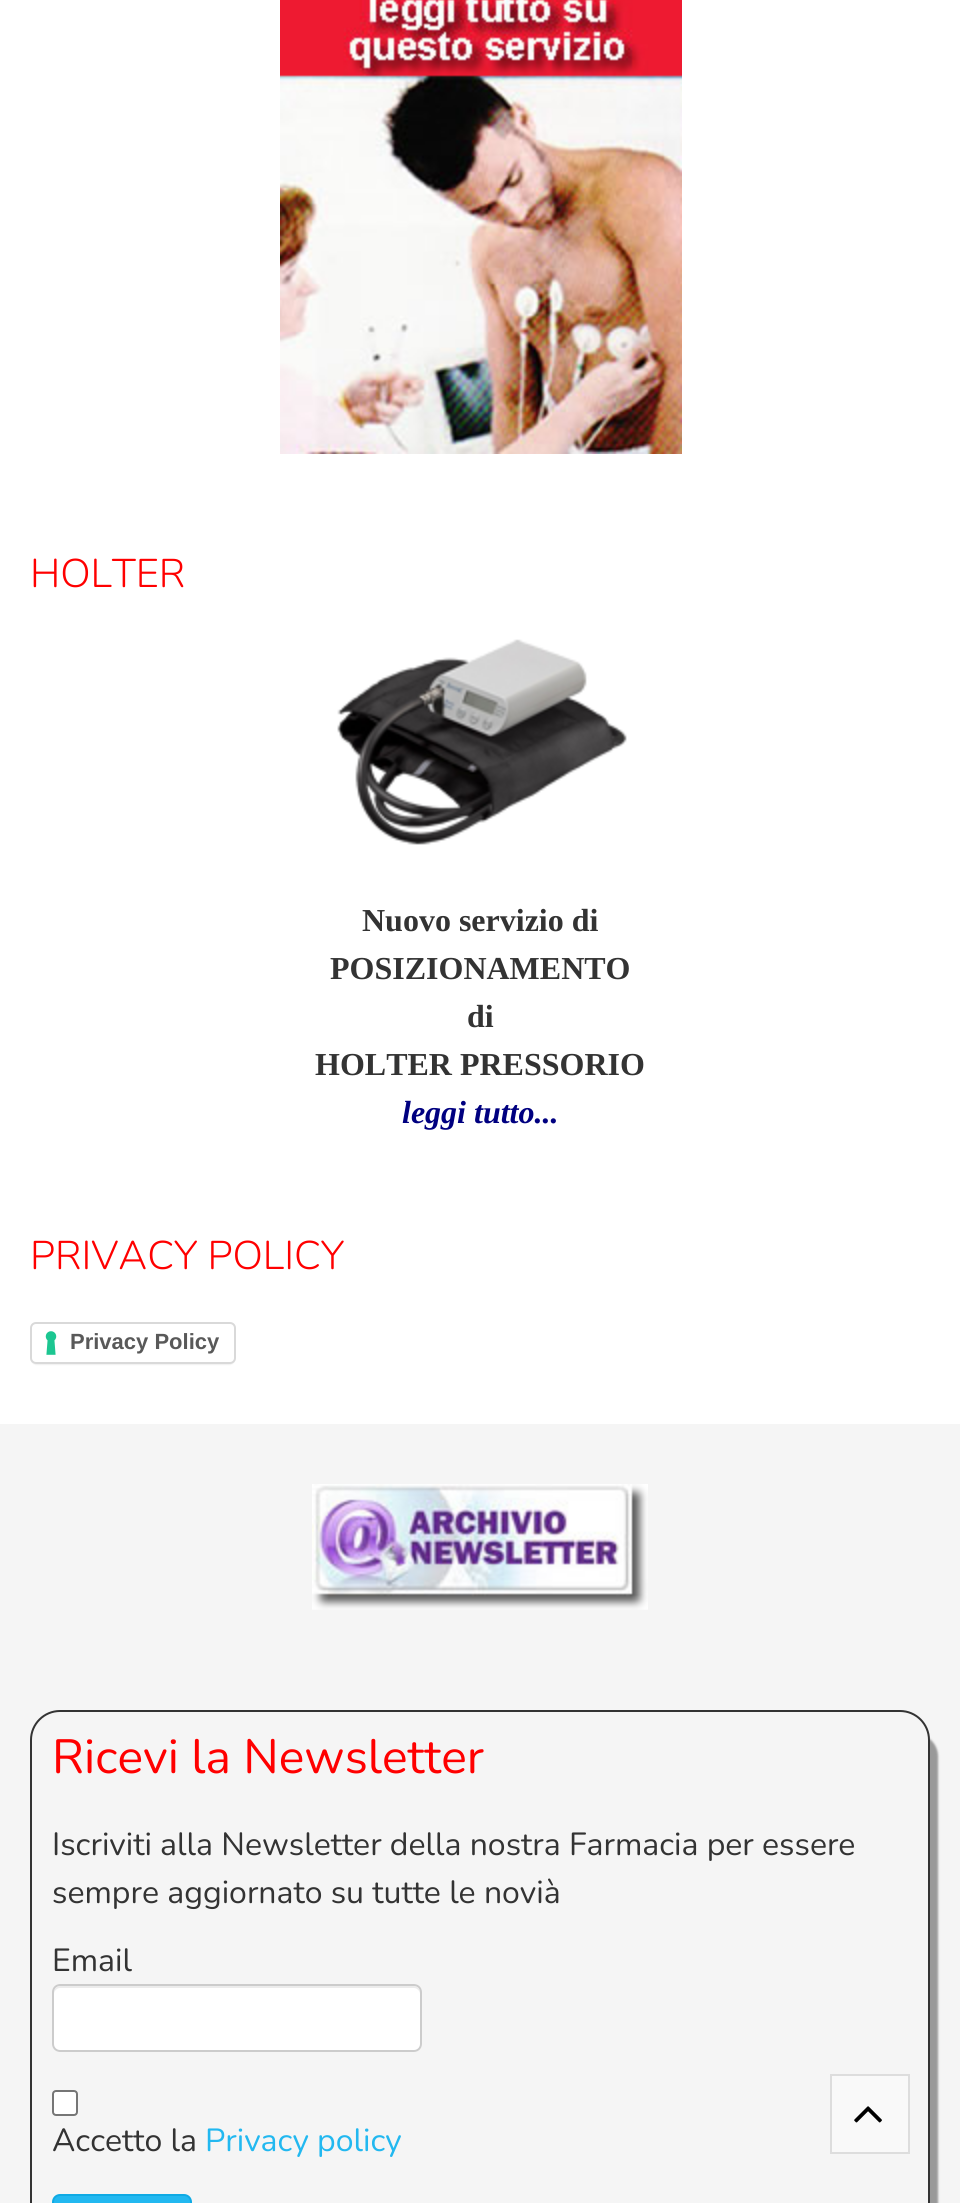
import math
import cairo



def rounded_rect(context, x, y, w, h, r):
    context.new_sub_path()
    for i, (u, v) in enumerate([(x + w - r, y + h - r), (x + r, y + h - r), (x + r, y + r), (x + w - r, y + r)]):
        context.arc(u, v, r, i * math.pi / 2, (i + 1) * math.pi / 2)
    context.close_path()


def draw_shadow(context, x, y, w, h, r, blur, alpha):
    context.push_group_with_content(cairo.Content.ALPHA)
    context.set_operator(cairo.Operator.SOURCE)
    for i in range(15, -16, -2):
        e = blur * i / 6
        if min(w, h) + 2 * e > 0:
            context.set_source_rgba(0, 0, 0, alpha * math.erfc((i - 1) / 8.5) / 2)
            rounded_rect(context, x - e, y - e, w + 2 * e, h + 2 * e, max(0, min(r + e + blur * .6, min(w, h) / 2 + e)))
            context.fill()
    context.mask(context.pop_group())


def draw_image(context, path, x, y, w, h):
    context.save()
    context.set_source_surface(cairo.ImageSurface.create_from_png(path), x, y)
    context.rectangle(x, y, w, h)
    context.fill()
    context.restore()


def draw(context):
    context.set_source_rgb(1, 1, 1)
    context.paint()
    draw_image(context, "images/1.png", 280, 0, 402, 454)
    draw_image(context, "images/2.png", 337, 639, 290, 206)
    context.set_source_rgb(0, 0, 0)
    draw_shadow(context, 32, 1326, 202, 38, 4, 1, 0.15)
    context.set_source_rgb(1, 1, 1)
    rounded_rect(context, 30, 1322, 206, 42, 6)
    context.fill()
    draw_image(context, "images/3.png", 45, 1331, 12, 24)
    rounded_rect(context, 31, 1323, 204, 40, 5)
    context.set_source_rgb(217 / 255, 217 / 255, 217 / 255)
    context.stroke()
    context.set_source_rgb(245 / 255, 245 / 255, 245 / 255)
    context.rectangle(0, 1424, 960, 779)
    context.fill()
    draw_image(context, "images/4.png", 312, 1484, 336, 126)
    context.save()
    context.set_fill_rule(cairo.FillRule.EVEN_ODD)
    context.new_path()
    context.move_to(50, 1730)
    context.line_to(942, 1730)
    context.line_to(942, 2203)
    context.line_to(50, 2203)
    context.close_path()
    context.move_to(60, 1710)
    context.line_to(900, 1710)
    context.curve_to(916.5, 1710, 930, 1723.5, 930, 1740)
    context.line_to(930, 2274)
    context.curve_to(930, 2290.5, 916.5, 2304, 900, 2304)
    context.line_to(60, 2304)
    context.curve_to(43.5, 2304, 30, 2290.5, 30, 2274)
    context.line_to(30, 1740)
    context.curve_to(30, 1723.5, 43.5, 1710, 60, 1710)
    context.close_path()
    context.clip()
    context.set_source_rgb(153 / 255, 153 / 255, 153 / 255)
    draw_shadow(context, 54, 1734, 884, 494, 22, 1, 1)
    context.restore()
    rounded_rect(context, 31, 1711, 898, 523, 29)
    context.set_source_rgb(51 / 255, 51 / 255, 51 / 255)
    context.stroke()
    context.set_source_rgb(1, 1, 1)
    rounded_rect(context, 52, 1984, 370, 68, 8)
    context.fill()
    context.set_source_rgb(236 / 255, 236 / 255, 236 / 255)
    context.new_path()
    context.move_to(60, 1988)
    context.line_to(414, 1988)
    context.curve_to(417, 1988, 420, 1991, 420, 1994)
    context.line_to(420, 1992)
    context.curve_to(420, 1989, 417, 1986, 414, 1986)
    context.line_to(60, 1986)
    context.curve_to(57, 1986, 54, 1989, 54, 1992)
    context.line_to(54, 1994)
    context.curve_to(54, 1991, 57, 1988, 60, 1988)
    context.close_path()
    context.fill()
    rounded_rect(context, 53, 1985, 368, 66, 7)
    context.set_source_rgb(204 / 255, 204 / 255, 204 / 255)
    context.stroke()
    context.set_source_rgb(1, 1, 1)
    rounded_rect(context, 53, 2091, 24, 24, 3)
    context.fill_preserve()
    context.set_source_rgb(118 / 255, 118 / 255, 118 / 255)
    context.stroke()
    context.set_source_rgb(34 / 255, 184 / 255, 240 / 255)
    rounded_rect(context, 53, 2195, 138, 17, 7)
    context.fill_preserve()
    context.set_source_rgb(15 / 255, 170 / 255, 228 / 255)
    context.stroke()
    context.set_source_rgb(249 / 255, 249 / 255, 249 / 255)
    context.rectangle(831, 2075, 78, 78)
    context.fill_preserve()
    context.set_source_rgb(221 / 255, 221 / 255, 221 / 255)
    context.stroke()
    draw_image(context, "images/5.png", 854, 2106, 28, 17)
    context.select_font_face("Nunito Light")
    context.set_font_size(40)
    context.set_source_rgb(1, 0, 0)
    context.move_to(30, 587)
    context.show_text("HOLTER")
    context.select_font_face("Liberation Serif", cairo.FontSlant.NORMAL, cairo.FontWeight.BOLD)
    context.set_font_size(32)
    context.set_source_rgb(51 / 255, 51 / 255, 51 / 255)
    context.move_to(362, 931)
    context.show_text("Nuovo servizio di")
    context.move_to(330, 979)
    context.show_text("POSIZIONAMENTO")
    context.move_to(467, 1027)
    context.show_text("di")
    context.move_to(315, 1075)
    context.show_text("HOLTER PRESSORIO")
    context.select_font_face("Liberation Serif", cairo.FontSlant.ITALIC, cairo.FontWeight.BOLD)
    context.set_source_rgb(0, 0, 128 / 255)
    context.move_to(402, 1123)
    context.show_text("leggi tutto...")
    context.select_font_face("Nunito Light")
    context.set_font_size(40)
    context.set_source_rgb(1, 0, 0)
    context.move_to(30, 1269)
    context.show_text("PRIVACY POLICY")
    context.select_font_face("Liberation Sans", cairo.FontSlant.NORMAL, cairo.FontWeight.BOLD)
    context.set_font_size(22)
    context.set_source_rgb(89 / 255, 89 / 255, 89 / 255)
    context.move_to(70, 1349)
    context.show_text("Privacy Policy")
    context.select_font_face("Nunito")
    context.set_font_size(48)
    context.set_source_rgb(1, 0, 0)
    context.move_to(52, 1773)
    context.show_text("Ricevi la Newsletter")
    context.set_font_size(32)
    context.set_source_rgb(51 / 255, 51 / 255, 51 / 255)
    context.move_to(52, 1855)
    context.show_text("Iscriviti alla Newsletter della nostra Farmacia per essere")
    context.move_to(52, 1903)
    context.show_text("sempre aggiornato su tutte le novià")
    context.move_to(52, 1971)
    context.show_text("Email")
    context.move_to(52, 2151)
    context.show_text("Accetto la")
    context.set_source_rgb(34 / 255, 184 / 255, 240 / 255)
    context.move_to(205, 2151)
    context.show_text("Privacy policy")


surface = cairo.ImageSurface(cairo.Format.RGB24, 960, 2203)
context = cairo.Context(surface)
options = cairo.FontOptions()
options.set_hint_metrics(cairo.HintMetrics.OFF)
options.set_hint_style(cairo.HintStyle.NONE)
context.set_font_options(options)
context.set_miter_limit(4)
draw(context)
surface.write_to_png("out.png")
